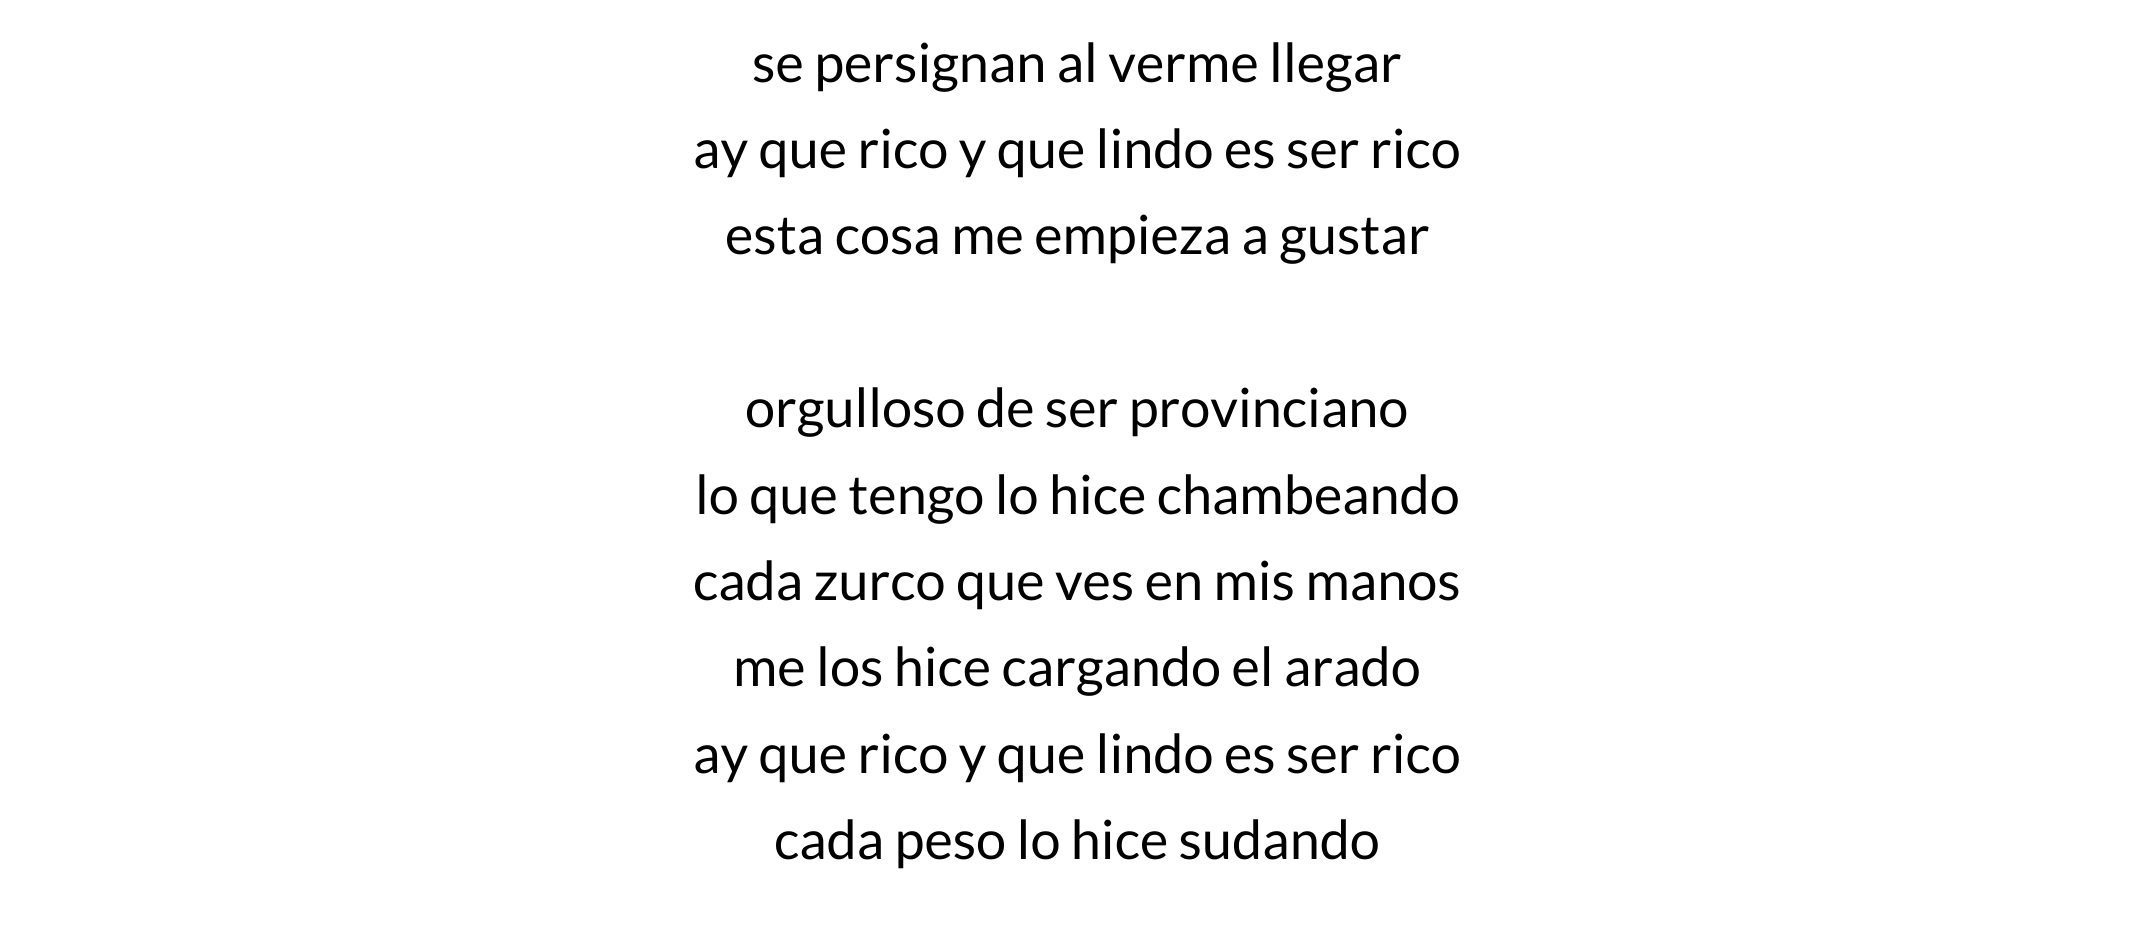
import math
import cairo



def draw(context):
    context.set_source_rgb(1, 1, 1)
    context.paint()
    context.select_font_face("Lato")
    context.set_font_size(54)
    context.set_source_rgb(0, 0, 0)
    context.move_to(752, 82)
    context.show_text("se persignan al verme llegar")
    context.move_to(693, 168)
    context.show_text("ay que rico y que lindo es ser rico")
    context.move_to(725, 254)
    context.show_text("esta cosa me empieza a gustar")
    context.move_to(745, 427)
    context.show_text("orgulloso de ser provinciano")
    context.move_to(695, 514)
    context.show_text("lo que tengo lo hice chambeando")
    context.move_to(693, 600)
    context.show_text("cada zurco que ves en mis manos")
    context.move_to(733, 686)
    context.show_text("me los hice cargando el arado")
    context.move_to(693, 773)
    context.show_text("ay que rico y que lindo es ser rico")
    context.move_to(774, 859)
    context.show_text("cada peso lo hice sudando")


surface = cairo.ImageSurface(cairo.Format.RGB24, 2153, 934)
context = cairo.Context(surface)
options = cairo.FontOptions()
options.set_hint_metrics(cairo.HintMetrics.OFF)
options.set_hint_style(cairo.HintStyle.NONE)
context.set_font_options(options)
context.set_miter_limit(4)
draw(context)
surface.write_to_png("out.png")
